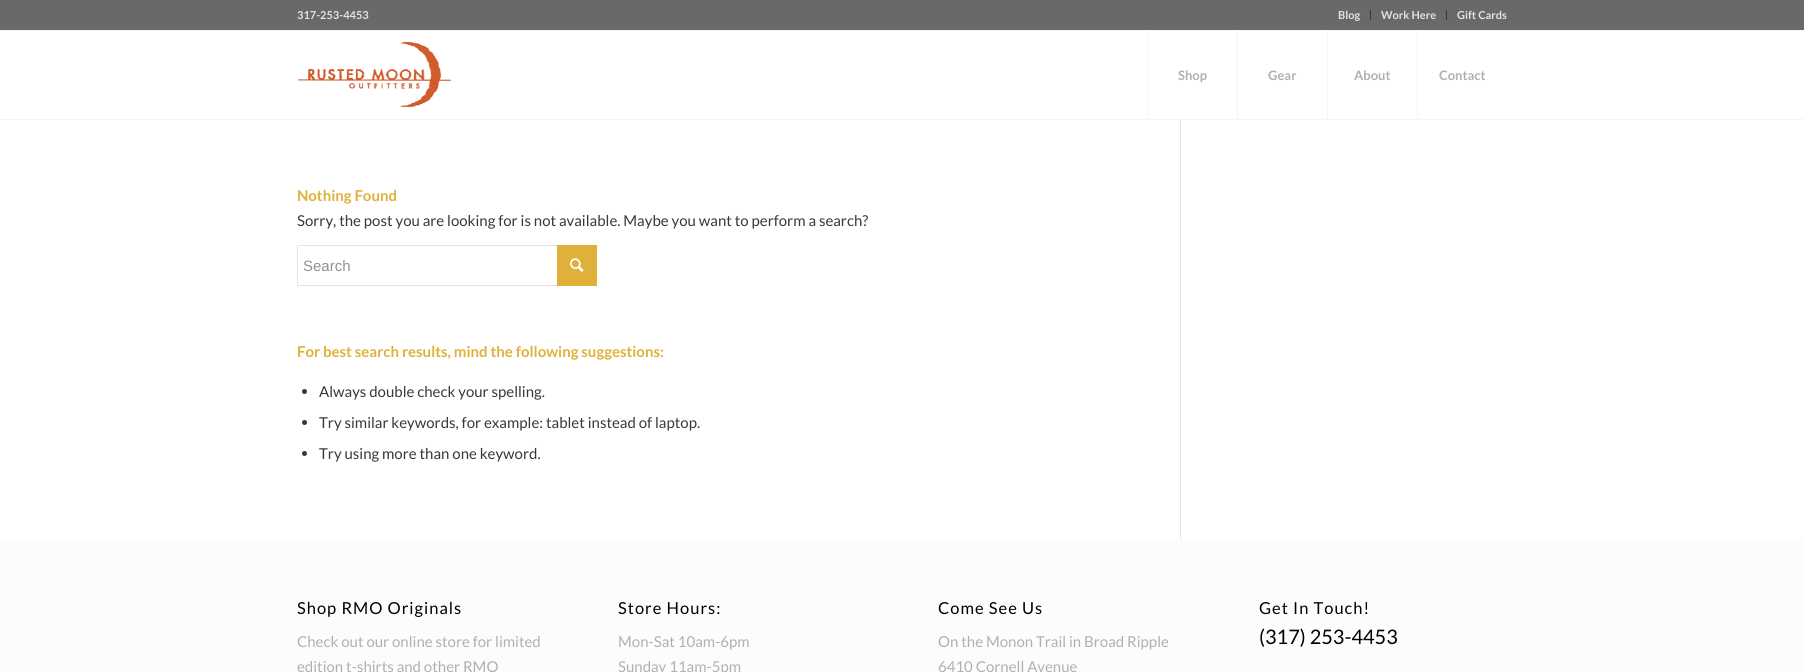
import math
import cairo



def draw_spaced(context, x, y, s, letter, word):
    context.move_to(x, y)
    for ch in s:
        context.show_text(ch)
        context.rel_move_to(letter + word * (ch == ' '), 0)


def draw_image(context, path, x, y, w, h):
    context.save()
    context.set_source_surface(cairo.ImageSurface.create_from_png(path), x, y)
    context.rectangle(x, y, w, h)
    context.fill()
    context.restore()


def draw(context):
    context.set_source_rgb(1, 1, 1)
    context.paint()
    context.set_source_rgb(105 / 255, 105 / 255, 105 / 255)
    context.rectangle(0, 0, 1804, 30)
    context.fill()
    context.set_source_rgb(245 / 255, 245 / 255, 245 / 255)
    context.rectangle(0, 30, 1804, 1)
    context.fill()
    context.set_source_rgb(56 / 255, 56 / 255, 56 / 255)
    context.rectangle(1370, 10, 1, 10)
    context.fill()
    context.rectangle(1446, 10, 1, 10)
    context.fill()
    context.set_source_rgb(245 / 255, 245 / 255, 245 / 255)
    context.rectangle(0, 119, 1804, 1)
    context.fill()
    draw_image(context, "images/1.png", 298, 41, 154, 66)
    context.rectangle(1147, 31, 1, 88)
    context.fill()
    context.rectangle(1237, 31, 1, 88)
    context.fill()
    context.rectangle(1327, 31, 1, 88)
    context.fill()
    context.rectangle(1417, 31, 1, 88)
    context.fill()
    context.set_source_rgb(227 / 255, 227 / 255, 227 / 255)
    context.rectangle(1180, 120, 1, 419)
    context.fill()
    context.rectangle(297.5, 245.5, 299, 40)
    context.set_line_width(1)
    context.stroke()
    context.set_source_rgb(224 / 255, 177 / 255, 58 / 255)
    context.rectangle(557, 245, 40, 41)
    context.fill()
    draw_image(context, "images/2.png", 570, 258, 14, 14)
    context.set_source_rgb(56 / 255, 56 / 255, 56 / 255)
    context.arc(304.5, 391.5, 2.5, 0, 2 * math.pi)
    context.fill()
    context.arc(304.5, 422.5, 2.5, 0, 2 * math.pi)
    context.fill()
    context.arc(304.5, 453.5, 2.5, 0, 2 * math.pi)
    context.fill()
    context.set_source_rgb(252 / 255, 252 / 255, 252 / 255)
    context.rectangle(0, 539, 1804, 133)
    context.fill()
    context.select_font_face("Lato", cairo.FontSlant.NORMAL, cairo.FontWeight.BOLD)
    context.set_font_size(11)
    context.set_source_rgb(227 / 255, 227 / 255, 227 / 255)
    context.move_to(297, 19)
    context.show_text("317-253-4453")
    context.move_to(1338, 19)
    context.show_text("Blog")
    context.move_to(1381, 19)
    context.show_text("Work Here")
    context.move_to(1457, 19)
    context.show_text("Gift Cards")
    context.set_font_size(13)
    context.set_source_rgb(176 / 255, 176 / 255, 176 / 255)
    context.move_to(1178, 80)
    context.show_text("Shop")
    context.move_to(1268, 80)
    context.show_text("Gear")
    context.move_to(1354, 80)
    context.show_text("About")
    context.move_to(1439, 80)
    context.show_text("Contact")
    context.set_font_size(15)
    context.set_source_rgb(224 / 255, 177 / 255, 58 / 255)
    context.move_to(297, 201)
    context.show_text("Nothing Found")
    context.select_font_face("Lato")
    context.set_source_rgb(56 / 255, 56 / 255, 56 / 255)
    context.move_to(297, 226)
    context.show_text("Sorry, the post you are looking for is not available. Maybe you want to perform a search?")
    context.select_font_face("Liberation Sans")
    context.set_source_rgb(145 / 255, 145 / 255, 145 / 255)
    context.move_to(303, 271)
    context.show_text("Search")
    context.select_font_face("Lato", cairo.FontSlant.NORMAL, cairo.FontWeight.BOLD)
    context.set_source_rgb(224 / 255, 177 / 255, 58 / 255)
    context.move_to(297, 357)
    context.show_text("For best search results, mind the following suggestions:")
    context.select_font_face("Lato")
    context.set_source_rgb(56 / 255, 56 / 255, 56 / 255)
    context.move_to(319, 397)
    context.show_text("Always double check your spelling.")
    context.move_to(319, 428)
    context.show_text("Try similar keywords, for example: tablet instead of laptop.")
    context.move_to(319, 459)
    context.show_text("Try using more than one keyword.")
    context.set_font_size(16.5)
    context.set_source_rgb(0, 0, 0)
    draw_spaced(context, 297, 614, "Shop RMO Originals", 1, 0)
    context.set_font_size(15)
    context.set_source_rgb(176 / 255, 176 / 255, 176 / 255)
    context.move_to(297, 647)
    context.show_text("Check out our online store for limited")
    context.move_to(297, 672)
    context.show_text("edition t-shirts and other RMO")
    context.set_font_size(16.5)
    context.set_source_rgb(0, 0, 0)
    draw_spaced(context, 618, 614, "Store Hours:", 1, 0)
    context.set_font_size(15)
    context.set_source_rgb(176 / 255, 176 / 255, 176 / 255)
    context.move_to(618, 647)
    context.show_text("Mon-Sat 10am-6pm")
    context.move_to(618, 672)
    context.show_text("Sunday 11am-5pm")
    context.set_font_size(16.5)
    context.set_source_rgb(0, 0, 0)
    draw_spaced(context, 938, 614, "Come See Us", 1, 0)
    context.set_font_size(15)
    context.set_source_rgb(176 / 255, 176 / 255, 176 / 255)
    context.move_to(938, 647)
    context.show_text("On the Monon Trail in Broad Ripple")
    context.move_to(938, 672)
    context.show_text("6410 Cornell Avenue")
    context.set_font_size(16.5)
    context.set_source_rgb(0, 0, 0)
    draw_spaced(context, 1259, 614, "Get In Touch!", 1, 0)
    context.set_font_size(20)
    context.move_to(1259, 644)
    context.show_text("(317) 253-4453")


surface = cairo.ImageSurface(cairo.Format.RGB24, 1804, 672)
context = cairo.Context(surface)
options = cairo.FontOptions()
options.set_hint_metrics(cairo.HintMetrics.OFF)
options.set_hint_style(cairo.HintStyle.NONE)
context.set_font_options(options)
context.set_miter_limit(4)
draw(context)
surface.write_to_png("out.png")
